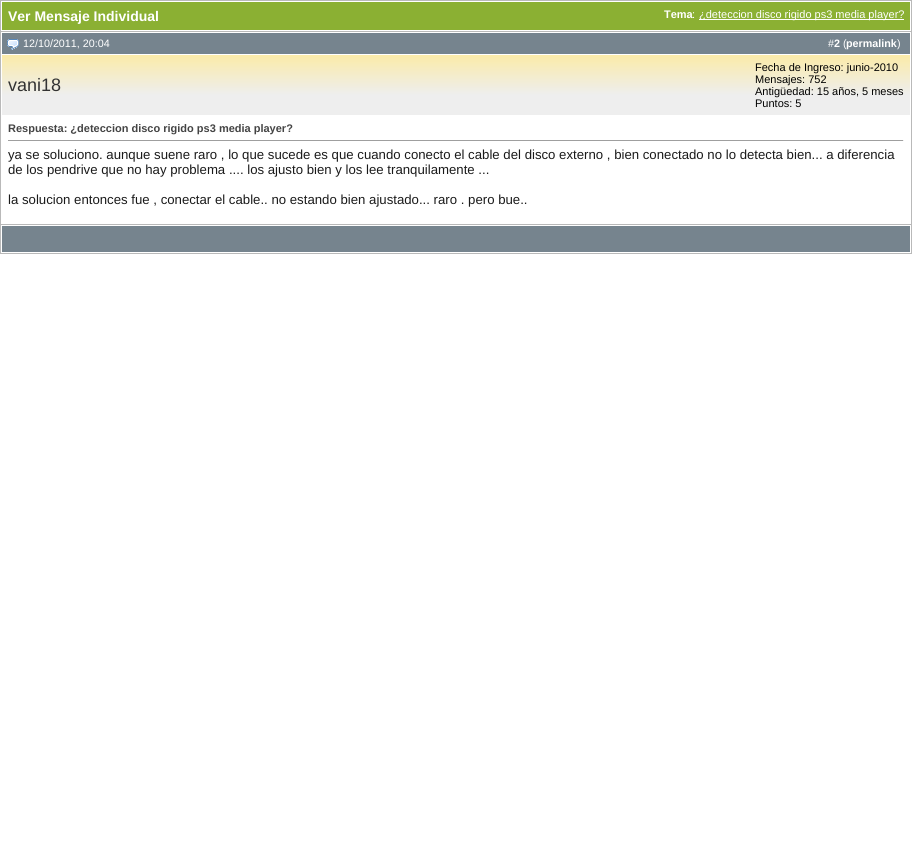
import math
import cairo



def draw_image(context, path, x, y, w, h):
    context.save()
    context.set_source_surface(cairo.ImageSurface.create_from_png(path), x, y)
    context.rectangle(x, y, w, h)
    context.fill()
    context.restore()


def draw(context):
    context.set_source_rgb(1, 1, 1)
    context.paint()
    context.set_source_rgb(185 / 255, 185 / 255, 185 / 255)
    context.rectangle(0, 0, 912, 1)
    context.fill()
    context.rectangle(911, 0, 1, 31)
    context.fill()
    context.rectangle(0, 0, 1, 31)
    context.fill()
    context.set_source_rgb(139 / 255, 176 / 255, 51 / 255)
    context.rectangle(2, 2, 908, 28)
    context.fill()
    context.set_source_rgb(1, 1, 1)
    context.rectangle(699, 19, 205, 1)
    context.fill()
    context.rectangle(0.5, 31.5, 911, 193)
    context.set_source_rgb(185 / 255, 185 / 255, 185 / 255)
    context.set_line_width(1)
    context.stroke()
    context.set_source_rgb(118 / 255, 132 / 255, 142 / 255)
    context.rectangle(2, 33, 908, 21)
    context.fill()
    draw_image(context, "images/1.png", 7, 39, 12, 11)
    gradient = cairo.LinearGradient(2, 55, 2, 95)
    gradient.add_color_stop_rgba(0, 251 / 255, 235 / 255, 168 / 255, 1)
    gradient.add_color_stop_rgba(1, 238 / 255, 238 / 255, 238 / 255, 1)
    context.set_source(gradient)
    context.rectangle(2, 55, 908, 60)
    context.fill()
    context.set_source_rgb(159 / 255, 159 / 255, 159 / 255)
    context.rectangle(8, 140, 896, 1)
    context.fill()
    context.set_source_rgb(238 / 255, 238 / 255, 238 / 255)
    context.rectangle(903, 140, 1, 1)
    context.fill()
    context.set_source_rgb(185 / 255, 185 / 255, 185 / 255)
    context.rectangle(911, 225, 1, 29)
    context.fill()
    context.rectangle(0, 253, 912, 1)
    context.fill()
    context.rectangle(0, 225, 1, 29)
    context.fill()
    context.set_source_rgb(118 / 255, 132 / 255, 142 / 255)
    context.rectangle(2, 226, 908, 26)
    context.fill()
    context.select_font_face("Liberation Sans", cairo.FontSlant.NORMAL, cairo.FontWeight.BOLD)
    context.set_font_size(14)
    context.set_source_rgb(1, 1, 1)
    context.move_to(8, 21)
    context.show_text("Ver Mensaje Individual")
    context.set_font_size(11)
    context.move_to(664, 18)
    context.show_text("Tema")
    context.select_font_face("Liberation Sans")
    context.move_to(692, 18)
    context.show_text(":")
    context.move_to(699, 18)
    context.show_text("¿deteccion disco rigido ps3 media player?")
    context.set_font_size(10.75)
    context.move_to(23, 47)
    context.show_text("12/10/2011, 20:04")
    context.move_to(828, 47)
    context.show_text("#")
    context.select_font_face("Liberation Sans", cairo.FontSlant.NORMAL, cairo.FontWeight.BOLD)
    context.move_to(834, 47)
    context.show_text("2")
    context.select_font_face("Liberation Sans")
    context.move_to(843, 47)
    context.show_text("(")
    context.select_font_face("Liberation Sans", cairo.FontSlant.NORMAL, cairo.FontWeight.BOLD)
    context.move_to(846, 47)
    context.show_text("permalink")
    context.select_font_face("Liberation Sans")
    context.move_to(897, 47)
    context.show_text(")")
    context.set_font_size(18)
    context.set_source_rgb(51 / 255, 51 / 255, 51 / 255)
    context.move_to(8, 91)
    context.show_text("vani18")
    context.set_font_size(11)
    context.set_source_rgb(0, 0, 0)
    context.move_to(755, 71)
    context.show_text("Fecha de Ingreso: junio-2010")
    context.move_to(755, 83)
    context.show_text("Mensajes: 752")
    context.move_to(755, 95)
    context.show_text("Antigüedad: 15 años, 5 meses")
    context.move_to(755, 107)
    context.show_text("Puntos: 5")
    context.select_font_face("Liberation Sans", cairo.FontSlant.NORMAL, cairo.FontWeight.BOLD)
    context.set_source_rgb(68 / 255, 68 / 255, 68 / 255)
    context.move_to(8, 132)
    context.show_text("Respuesta: ¿deteccion disco rigido ps3 media player?")
    context.select_font_face("Liberation Sans")
    context.set_font_size(13.2)
    context.set_source_rgb(26 / 255, 26 / 255, 26 / 255)
    context.move_to(8, 159)
    context.show_text("ya se soluciono. aunque suene raro , lo que sucede es que cuando conecto el cable del disco externo , bien conectado no lo detecta bien... a diferencia")
    context.move_to(8, 174)
    context.show_text("de los pendrive que no hay problema .... los ajusto bien y los lee tranquilamente ...")
    context.move_to(8, 204)
    context.show_text("la solucion entonces fue , conectar el cable.. no estando bien ajustado... raro . pero bue..")


surface = cairo.ImageSurface(cairo.Format.RGB24, 912, 851)
context = cairo.Context(surface)
options = cairo.FontOptions()
options.set_hint_metrics(cairo.HintMetrics.OFF)
options.set_hint_style(cairo.HintStyle.NONE)
context.set_font_options(options)
context.set_miter_limit(4)
draw(context)
surface.write_to_png("out.png")
